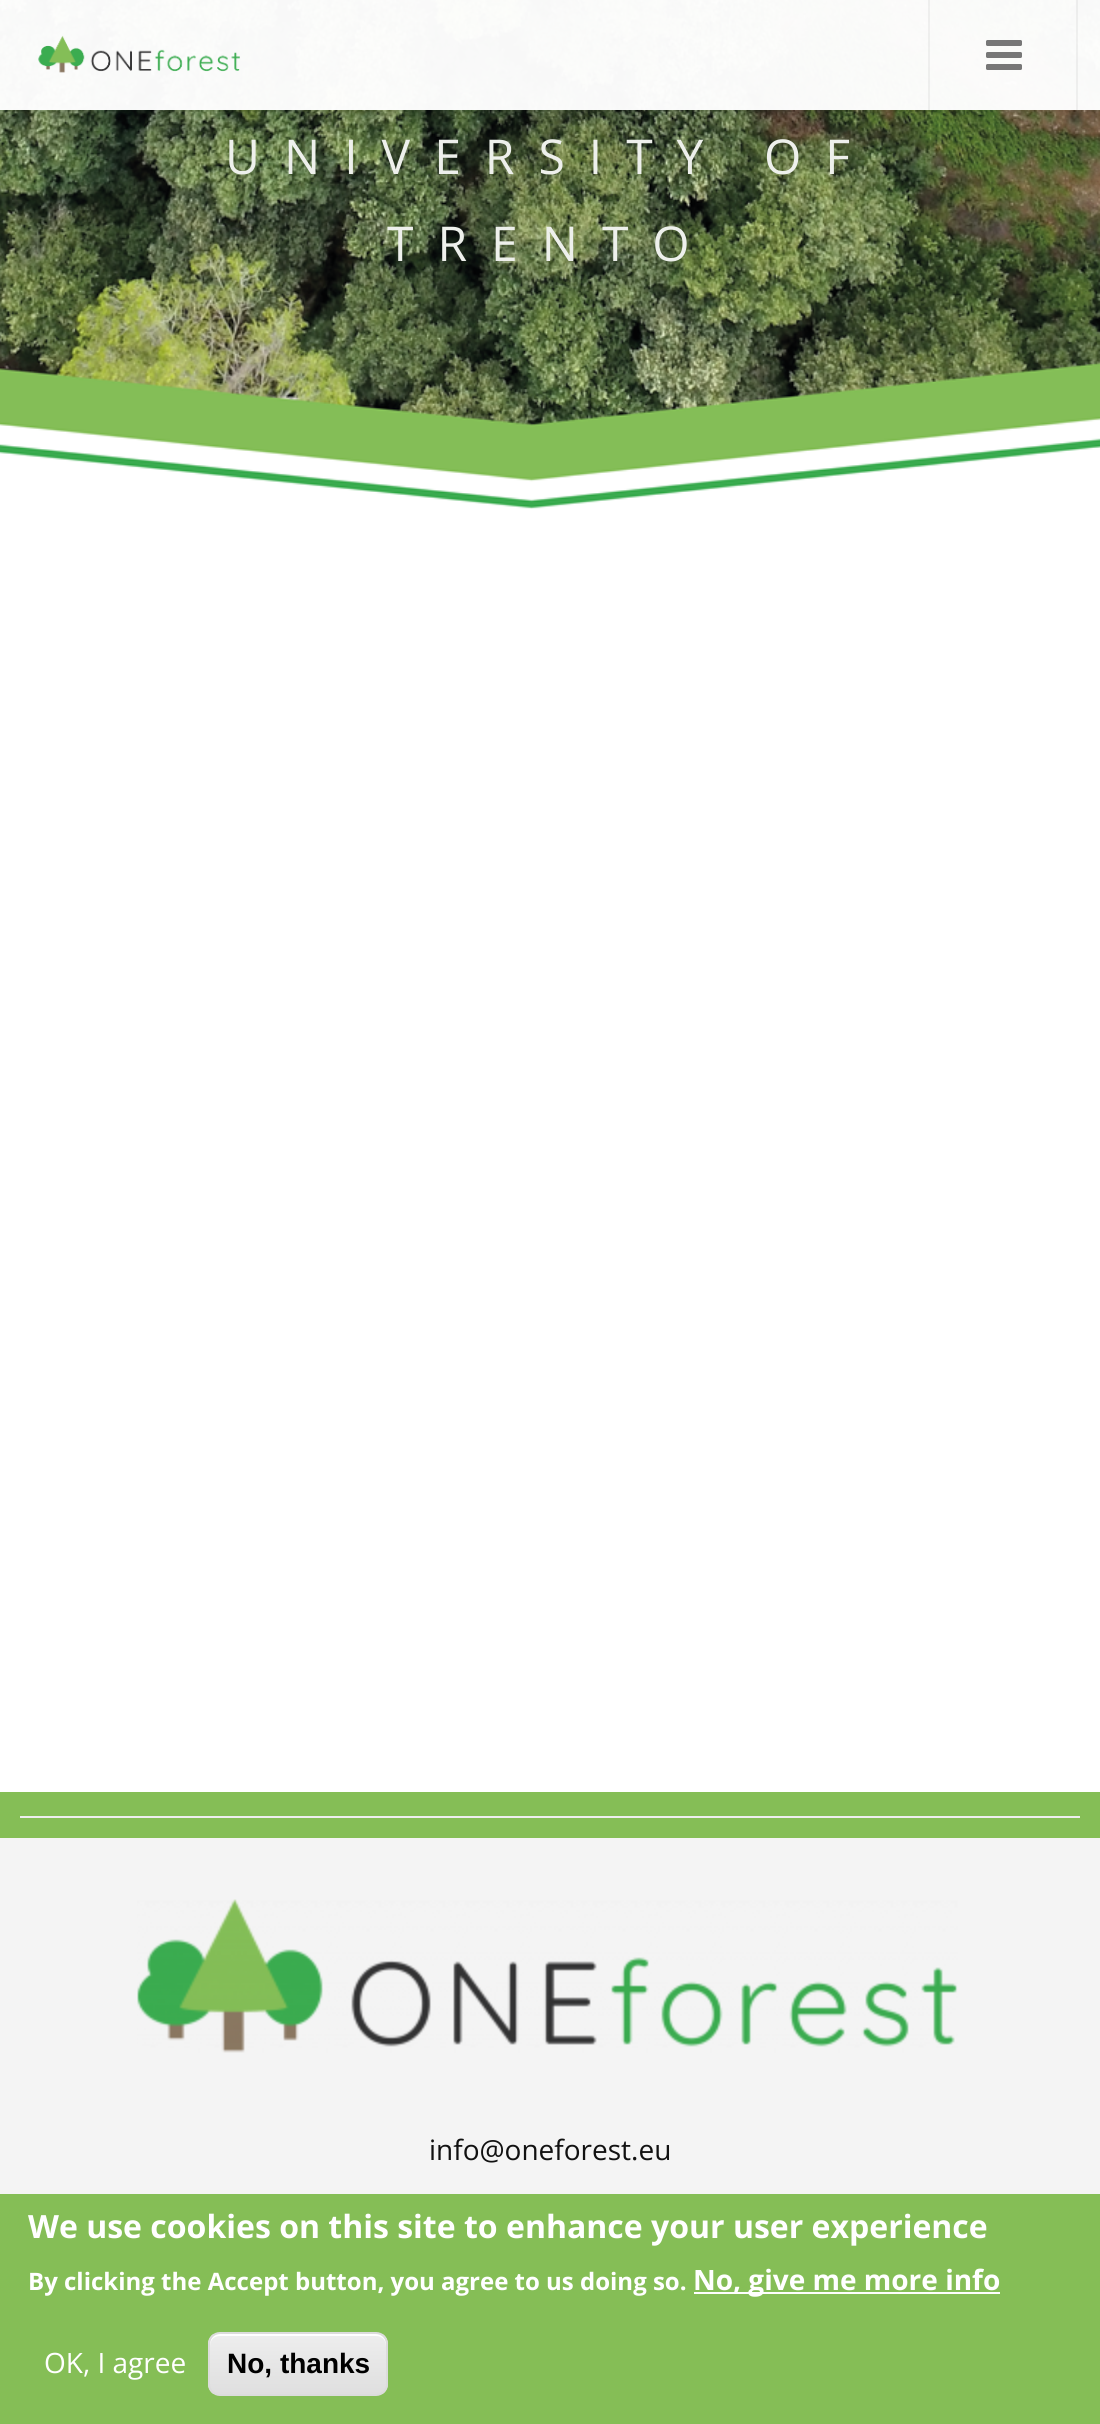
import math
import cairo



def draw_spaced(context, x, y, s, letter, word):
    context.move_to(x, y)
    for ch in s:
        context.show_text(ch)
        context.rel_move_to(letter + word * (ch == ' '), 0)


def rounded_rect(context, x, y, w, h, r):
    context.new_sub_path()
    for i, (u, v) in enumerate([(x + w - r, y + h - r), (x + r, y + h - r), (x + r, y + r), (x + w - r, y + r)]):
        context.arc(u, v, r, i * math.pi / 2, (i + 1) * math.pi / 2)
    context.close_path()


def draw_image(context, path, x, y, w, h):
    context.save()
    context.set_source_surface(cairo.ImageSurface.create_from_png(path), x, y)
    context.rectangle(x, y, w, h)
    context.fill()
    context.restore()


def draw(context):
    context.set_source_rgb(1, 1, 1)
    context.paint()
    draw_image(context, "images/3.png", 0, 0, 1100, 509)
    context.set_source_rgba(0, 0, 0, 0.05)
    context.rectangle(0, 110, 1100, 2)
    context.fill()
    context.set_source_rgba(1, 1, 1, 0.97)
    context.rectangle(0, 0, 1100, 110)
    context.fill()
    draw_image(context, "images/1.png", 38, 35, 202, 38)
    context.set_source_rgba(0, 0, 0, 0.05)
    context.rectangle(1076, 0, 2, 110)
    context.fill()
    context.rectangle(928, 0, 2, 110)
    context.fill()
    draw_image(context, "images/2.png", 986, 40, 36, 30)
    context.set_source_rgb(133 / 255, 190 / 255, 86 / 255)
    context.rectangle(0, 1792, 1100, 46)
    context.fill()
    context.set_source_rgb(238 / 255, 238 / 255, 238 / 255)
    context.rectangle(20, 1816, 1060, 2)
    context.fill()
    context.set_source_rgb(244 / 255, 244 / 255, 244 / 255)
    context.rectangle(0, 1838, 1100, 356)
    context.fill()
    draw_image(context, "images/4.png", 137, 1899, 821, 154)
    context.set_source_rgb(133 / 255, 190 / 255, 86 / 255)
    context.rectangle(0, 2194, 1100, 230)
    context.fill()
    context.set_source_rgb(1, 1, 1)
    context.rectangle(694, 2292, 306, 2)
    context.fill()
    context.save()
    rounded_rect(context, 208, 2332, 180, 64, 12)
    context.clip()
    gradient = cairo.LinearGradient(298, 2334, 298, 2394)
    gradient.add_color_stop_rgba(0.05, 237 / 255, 237 / 255, 237 / 255, 1)
    gradient.add_color_stop_rgba(1, 223 / 255, 223 / 255, 223 / 255, 1)
    context.set_source(gradient)
    context.rectangle(208, 2334, 180, 60)
    context.fill()
    context.restore()
    context.new_path()
    context.move_to(220, 2336)
    context.line_to(376, 2336)
    context.curve_to(382, 2336, 386, 2340, 386, 2346)
    context.line_to(386, 2344)
    context.curve_to(386, 2338, 382, 2334, 376, 2334)
    context.line_to(220, 2334)
    context.curve_to(214, 2334, 210, 2338, 210, 2344)
    context.line_to(210, 2346)
    context.curve_to(210, 2340, 214, 2336, 220, 2336)
    context.close_path()
    context.fill()
    rounded_rect(context, 209, 2333, 178, 62, 11)
    context.set_source_rgb(220 / 255, 220 / 255, 220 / 255)
    context.stroke()
    context.select_font_face("Open Sans")
    context.set_font_size(48)
    context.set_source_rgb(238 / 255, 240 / 255, 236 / 255)
    draw_spaced(context, 225, 174, "UNIVERSITY OF", 24, 0)
    draw_spaced(context, 387, 261, "TRENTO", 24, 0)
    context.set_font_size(28)
    context.set_source_rgb(17 / 255, 17 / 255, 17 / 255)
    context.move_to(429, 2160)
    context.show_text("info@oneforest.eu")
    context.select_font_face("Open Sans", cairo.FontSlant.NORMAL, cairo.FontWeight.BOLD)
    context.set_font_size(32)
    context.set_source_rgb(1, 1, 1)
    context.move_to(28, 2238)
    context.show_text("We use cookies on this site to enhance your user experience")
    context.set_font_size(24)
    context.move_to(28, 2290)
    context.show_text("By clicking the Accept button, you agree to us doing so.")
    context.set_font_size(28)
    context.move_to(693, 2290)
    context.show_text("No, give me more info")
    context.select_font_face("Open Sans")
    context.move_to(44, 2373)
    context.show_text("OK, I agree")
    context.select_font_face("Liberation Sans", cairo.FontSlant.NORMAL, cairo.FontWeight.BOLD)
    context.set_source_rgb(0, 0, 0)
    context.move_to(227, 2373)
    context.show_text("No, thanks")


surface = cairo.ImageSurface(cairo.Format.RGB24, 1100, 2424)
context = cairo.Context(surface)
options = cairo.FontOptions()
options.set_hint_metrics(cairo.HintMetrics.OFF)
options.set_hint_style(cairo.HintStyle.NONE)
context.set_font_options(options)
context.set_miter_limit(4)
draw(context)
surface.write_to_png("out.png")
